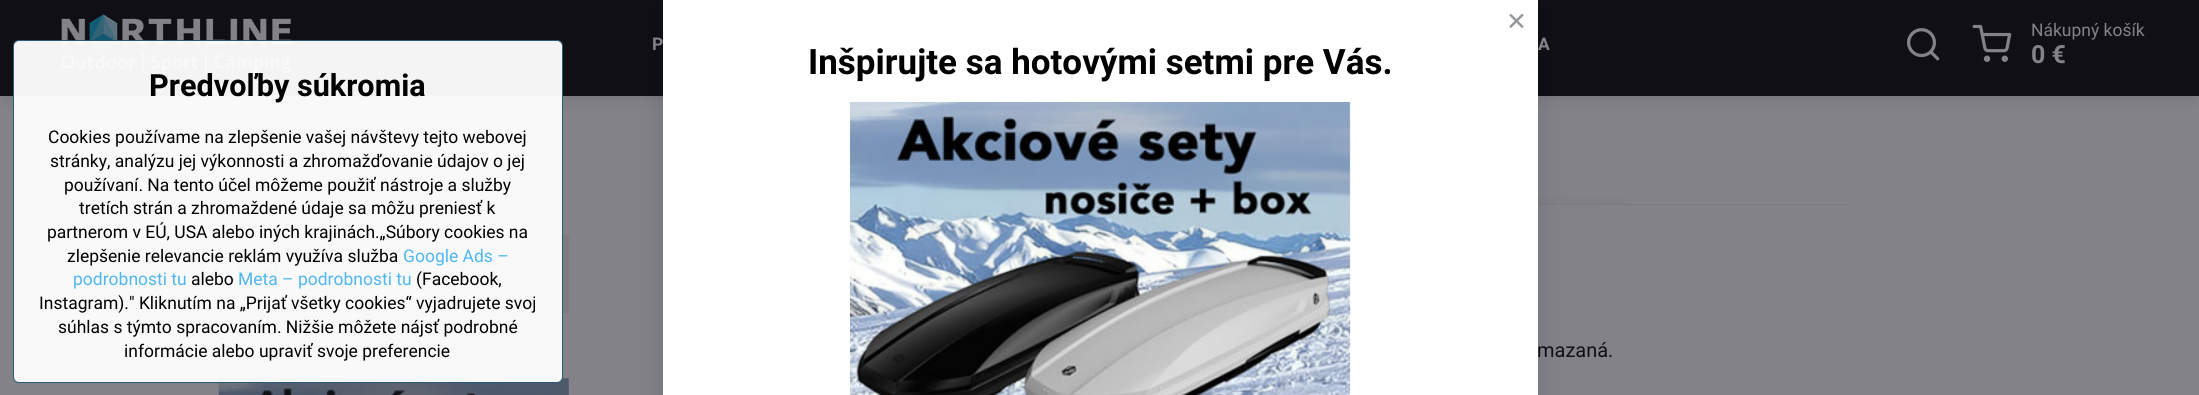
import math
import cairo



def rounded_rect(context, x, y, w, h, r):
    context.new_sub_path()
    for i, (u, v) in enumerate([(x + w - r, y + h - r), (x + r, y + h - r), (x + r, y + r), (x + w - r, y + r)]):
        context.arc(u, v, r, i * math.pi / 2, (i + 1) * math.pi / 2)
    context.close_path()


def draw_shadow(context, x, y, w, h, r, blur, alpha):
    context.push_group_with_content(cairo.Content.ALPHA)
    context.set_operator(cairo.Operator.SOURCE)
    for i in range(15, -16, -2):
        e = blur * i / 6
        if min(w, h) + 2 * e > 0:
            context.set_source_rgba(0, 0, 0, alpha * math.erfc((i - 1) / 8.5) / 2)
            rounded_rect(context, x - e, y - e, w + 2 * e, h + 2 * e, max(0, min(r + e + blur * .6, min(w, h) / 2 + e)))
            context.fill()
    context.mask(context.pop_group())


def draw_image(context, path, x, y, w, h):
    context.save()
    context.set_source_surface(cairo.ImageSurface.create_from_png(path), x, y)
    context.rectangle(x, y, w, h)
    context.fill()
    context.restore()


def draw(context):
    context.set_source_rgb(130 / 255, 130 / 255, 136 / 255)
    context.paint()
    context.set_source_rgb(15 / 255, 15 / 255, 30 / 255)
    draw_shadow(context, 5, 1, 2190, 95, 0, 7.5, 0.15)
    context.set_source_rgb(15 / 255, 15 / 255, 21 / 255)
    context.rectangle(0, 0, 2199, 96)
    context.fill()
    context.set_source_rgb(123 / 255, 123 / 255, 129 / 255)
    context.rectangle(1538, 204, 313, 1)
    context.fill()
    gradient = cairo.RadialGradient(0, 0, 0, 0, 0, 1)
    gradient.set_matrix(cairo.Matrix(1 / 944, 0, 0, 1 / 28, -1 * 1295 / 944, -1 * 204 / 28))
    gradient.add_color_stop_rgba(0, 125 / 255, 127 / 255, 133 / 255, 1)
    gradient.add_color_stop_rgba(0.7, 130 / 255, 130 / 255, 136 / 255, 1)
    context.set_source(gradient)
    context.rectangle(1538, 197, 87, 7)
    context.fill()
    context.set_source_rgb(0, 0, 20 / 255)
    draw_shadow(context, 665, 5, 870, 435, 0, 15, 0.15)
    draw_image(context, "images/2.png", 61, 14, 231, 60)
    context.set_source_rgb(123 / 255, 123 / 255, 129 / 255)
    context.rectangle(219, 235, 350, 78)
    context.fill()
    draw_image(context, "images/5.png", 238, 259, 40, 30)
    draw_image(context, "images/6.png", 218, 378, 351, 17)
    context.set_source_rgba(1, 1, 1, 0.95)
    rounded_rect(context, 13.5, 40.5, 549, 342, 5.5)
    context.fill_preserve()
    context.set_source_rgb(39 / 255, 91 / 255, 119 / 255)
    context.set_line_width(1)
    context.stroke()
    draw_image(context, "images/3.png", 1907, 28, 33, 33)
    draw_image(context, "images/4.png", 1972, 24, 40, 38)
    context.select_font_face("Roboto", cairo.FontSlant.NORMAL, cairo.FontWeight.BOLD)
    context.set_font_size(30.6)
    context.set_source_rgb(0, 0, 0)
    context.move_to(149, 96)
    context.show_text("Predvoľby súkromia")
    context.select_font_face("Roboto")
    context.set_font_size(17.5)
    context.move_to(48, 143)
    context.show_text("Cookies používame na zlepšenie vašej návštevy tejto webovej")
    context.move_to(50, 167)
    context.show_text("stránky, analýzu jej výkonnosti a zhromažďovanie údajov o jej")
    context.move_to(64, 191)
    context.show_text("používaní. Na tento účel môžeme použiť nástroje a služby")
    context.move_to(79, 214)
    context.show_text("tretích strán a zhromaždené údaje sa môžu preniesť k")
    context.move_to(47, 238)
    context.show_text("partnerom v EÚ, USA alebo iných krajinách.„Súbory cookies na")
    context.move_to(67, 262)
    context.show_text("zlepšenie relevancie reklám využíva služba")
    context.set_source_rgb(79 / 255, 183 / 255, 239 / 255)
    context.move_to(403, 262)
    context.show_text("Google Ads –")
    context.move_to(73, 285)
    context.show_text("podrobnosti tu")
    context.set_source_rgb(0, 0, 0)
    context.move_to(191, 285)
    context.show_text("alebo")
    context.set_source_rgb(79 / 255, 183 / 255, 239 / 255)
    context.move_to(238, 285)
    context.show_text("Meta – podrobnosti tu")
    context.set_source_rgb(0, 0, 0)
    context.move_to(416, 285)
    context.show_text("(Facebook,")
    context.move_to(39, 309)
    context.show_text("Instagram).\" Kliknutím na „Prijať všetky cookies“ vyjadrujete svoj")
    context.move_to(58, 333)
    context.show_text("súhlas s týmto spracovaním. Nižšie môžete nájsť podrobné")
    context.move_to(124, 357)
    context.show_text("informácie alebo upraviť svoje preferencie")
    context.select_font_face("Roboto", cairo.FontSlant.NORMAL, cairo.FontWeight.BOLD)
    context.set_source_rgb(130 / 255, 130 / 255, 136 / 255)
    context.move_to(652, 50)
    context.show_text("P")
    context.move_to(1538, 50)
    context.show_text("A")
    context.set_source_rgb(1, 1, 1)
    context.rectangle(663, 0, 875, 395)
    context.fill()
    context.select_font_face("DejaVu Sans")
    context.set_font_size(25)
    context.set_source_rgb(149 / 255, 151 / 255, 156 / 255)
    context.move_to(1506, 30)
    context.show_text("✕")
    draw_image(context, "images/1.png", 850, 102, 501, 293)
    context.select_font_face("Roboto", cairo.FontSlant.NORMAL, cairo.FontWeight.BOLD)
    context.set_font_size(35)
    context.set_source_rgb(0, 0, 0)
    context.move_to(808, 74)
    context.show_text("Inšpirujte sa hotovými setmi pre Vás.")
    context.select_font_face("Roboto")
    context.set_font_size(17.5)
    context.set_source_rgb(130 / 255, 130 / 255, 136 / 255)
    context.move_to(2031, 36)
    context.show_text("Nákupný košík")
    context.select_font_face("Roboto", cairo.FontSlant.NORMAL, cairo.FontWeight.BOLD)
    context.set_font_size(25)
    context.move_to(2031, 63)
    context.show_text("0 €")
    context.select_font_face("Roboto")
    context.set_font_size(20)
    context.set_source_rgb(15 / 255, 15 / 255, 21 / 255)
    context.move_to(1537, 357)
    context.show_text("mazaná.")


surface = cairo.ImageSurface(cairo.Format.RGB24, 2199, 395)
context = cairo.Context(surface)
options = cairo.FontOptions()
options.set_hint_metrics(cairo.HintMetrics.OFF)
options.set_hint_style(cairo.HintStyle.NONE)
context.set_font_options(options)
context.set_miter_limit(4)
draw(context)
surface.write_to_png("out.png")
